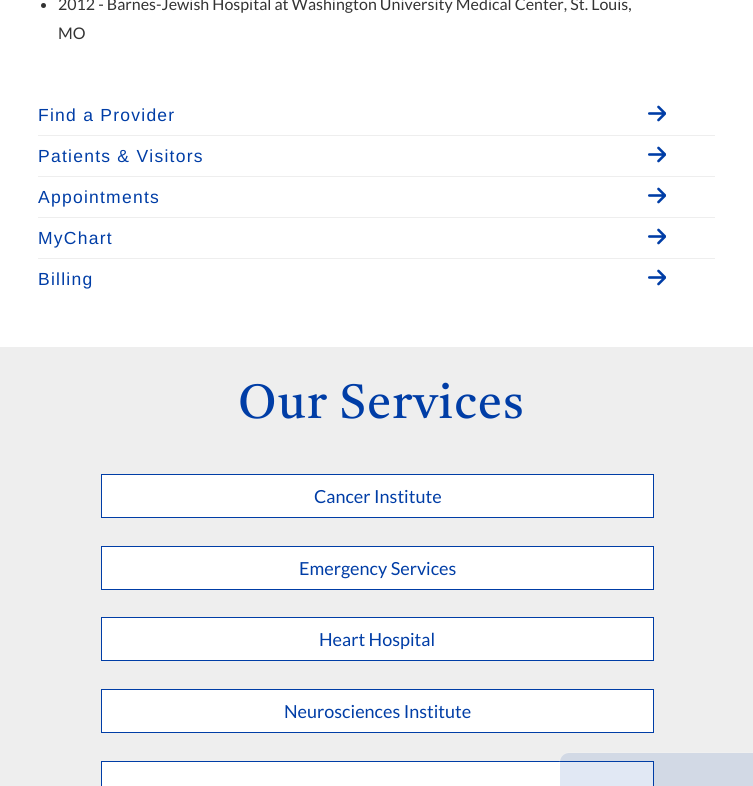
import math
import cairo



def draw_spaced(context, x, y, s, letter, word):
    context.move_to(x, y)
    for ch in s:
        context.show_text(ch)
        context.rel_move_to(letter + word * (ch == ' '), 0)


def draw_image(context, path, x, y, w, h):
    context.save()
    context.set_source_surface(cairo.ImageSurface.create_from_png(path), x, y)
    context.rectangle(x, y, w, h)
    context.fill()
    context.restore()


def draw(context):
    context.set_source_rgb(1, 1, 1)
    context.paint()
    context.set_source_rgb(51 / 255, 51 / 255, 51 / 255)
    context.arc(43.5, 5.5, 2.5, 0, 2 * math.pi)
    context.fill()
    draw_image(context, "images/1.png", 648, 105, 18, 17)
    context.set_source_rgb(238 / 255, 238 / 255, 238 / 255)
    context.rectangle(38, 135, 677, 1)
    context.fill()
    draw_image(context, "images/1.png", 648, 146, 18, 17)
    context.rectangle(38, 176, 677, 1)
    context.fill()
    draw_image(context, "images/1.png", 648, 187, 18, 17)
    context.rectangle(38, 217, 677, 1)
    context.fill()
    draw_image(context, "images/1.png", 648, 228, 18, 17)
    context.rectangle(38, 258, 677, 1)
    context.fill()
    draw_image(context, "images/1.png", 648, 269, 18, 17)
    context.rectangle(0, 347, 753, 439)
    context.fill()
    context.set_source_rgb(1, 1, 1)
    context.rectangle(101.5, 474.5, 552, 43)
    context.fill_preserve()
    context.set_source_rgb(0, 61 / 255, 166 / 255)
    context.set_line_width(1)
    context.stroke()
    context.set_source_rgb(1, 1, 1)
    context.rectangle(101.5, 546.5, 552, 43)
    context.fill_preserve()
    context.set_source_rgb(0, 61 / 255, 166 / 255)
    context.stroke()
    context.set_source_rgb(1, 1, 1)
    context.rectangle(101.5, 617.5, 552, 43)
    context.fill_preserve()
    context.set_source_rgb(0, 61 / 255, 166 / 255)
    context.stroke()
    context.set_source_rgb(1, 1, 1)
    context.rectangle(101.5, 689.5, 552, 43)
    context.fill_preserve()
    context.set_source_rgb(0, 61 / 255, 166 / 255)
    context.stroke()
    context.set_source_rgb(1, 1, 1)
    context.rectangle(101.5, 761.5, 552, 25)
    context.fill_preserve()
    context.set_source_rgb(0, 61 / 255, 166 / 255)
    context.stroke()
    context.set_source_rgba(0, 61 / 255, 166 / 255, 0.12)
    context.new_path()
    context.move_to(569, 753)
    context.line_to(753, 753)
    context.line_to(753, 786)
    context.line_to(560, 786)
    context.line_to(560, 762)
    context.curve_to(560, 757, 564, 753, 569, 753)
    context.close_path()
    context.fill()
    context.set_source_rgba(1, 1, 1, 0.12)
    context.set_fill_rule(cairo.FillRule.EVEN_ODD)
    context.new_path()
    context.move_to(569, 752)
    context.line_to(753, 752)
    context.line_to(753, 786)
    context.line_to(559, 786)
    context.line_to(559, 762)
    context.curve_to(559, 757, 564, 752, 569, 752)
    context.close_path()
    context.move_to(569, 753)
    context.line_to(753, 753)
    context.line_to(753, 786)
    context.line_to(560, 786)
    context.line_to(560, 762)
    context.curve_to(560, 757, 564, 753, 569, 753)
    context.close_path()
    context.fill()
    context.select_font_face("Lato")
    context.set_font_size(16)
    context.set_source_rgb(51 / 255, 51 / 255, 51 / 255)
    context.move_to(58, 10)
    context.show_text("2012 - Barnes-Jewish Hospital at Washington University Medical Center, St. Louis,")
    context.move_to(58, 39)
    context.show_text("MO")
    context.select_font_face("Liberation Sans")
    context.set_font_size(17.5)
    context.set_source_rgb(0, 61 / 255, 166 / 255)
    draw_spaced(context, 38, 121, "Find a Provider", 1.25, 0)
    draw_spaced(context, 38, 162, "Patients & Visitors", 1.25, 0)
    draw_spaced(context, 38, 203, "Appointments", 1.25, 0)
    draw_spaced(context, 38, 244, "MyChart", 1.25, 0)
    draw_spaced(context, 38, 285, "Billing", 1.25, 0)
    context.select_font_face("Castoro")
    context.set_font_size(48)
    draw_spaced(context, 238, 418, "Our Services", 1.25, 0)
    context.select_font_face("Lato")
    context.set_font_size(18)
    context.move_to(314, 503)
    context.show_text("Cancer Institute")
    context.move_to(299, 575)
    context.show_text("Emergency Services")
    context.move_to(319, 646)
    context.show_text("Heart Hospital")
    context.move_to(284, 718)
    context.show_text("Neurosciences Institute")


surface = cairo.ImageSurface(cairo.Format.RGB24, 753, 786)
context = cairo.Context(surface)
options = cairo.FontOptions()
options.set_hint_metrics(cairo.HintMetrics.OFF)
options.set_hint_style(cairo.HintStyle.NONE)
context.set_font_options(options)
context.set_miter_limit(4)
draw(context)
surface.write_to_png("out.png")
